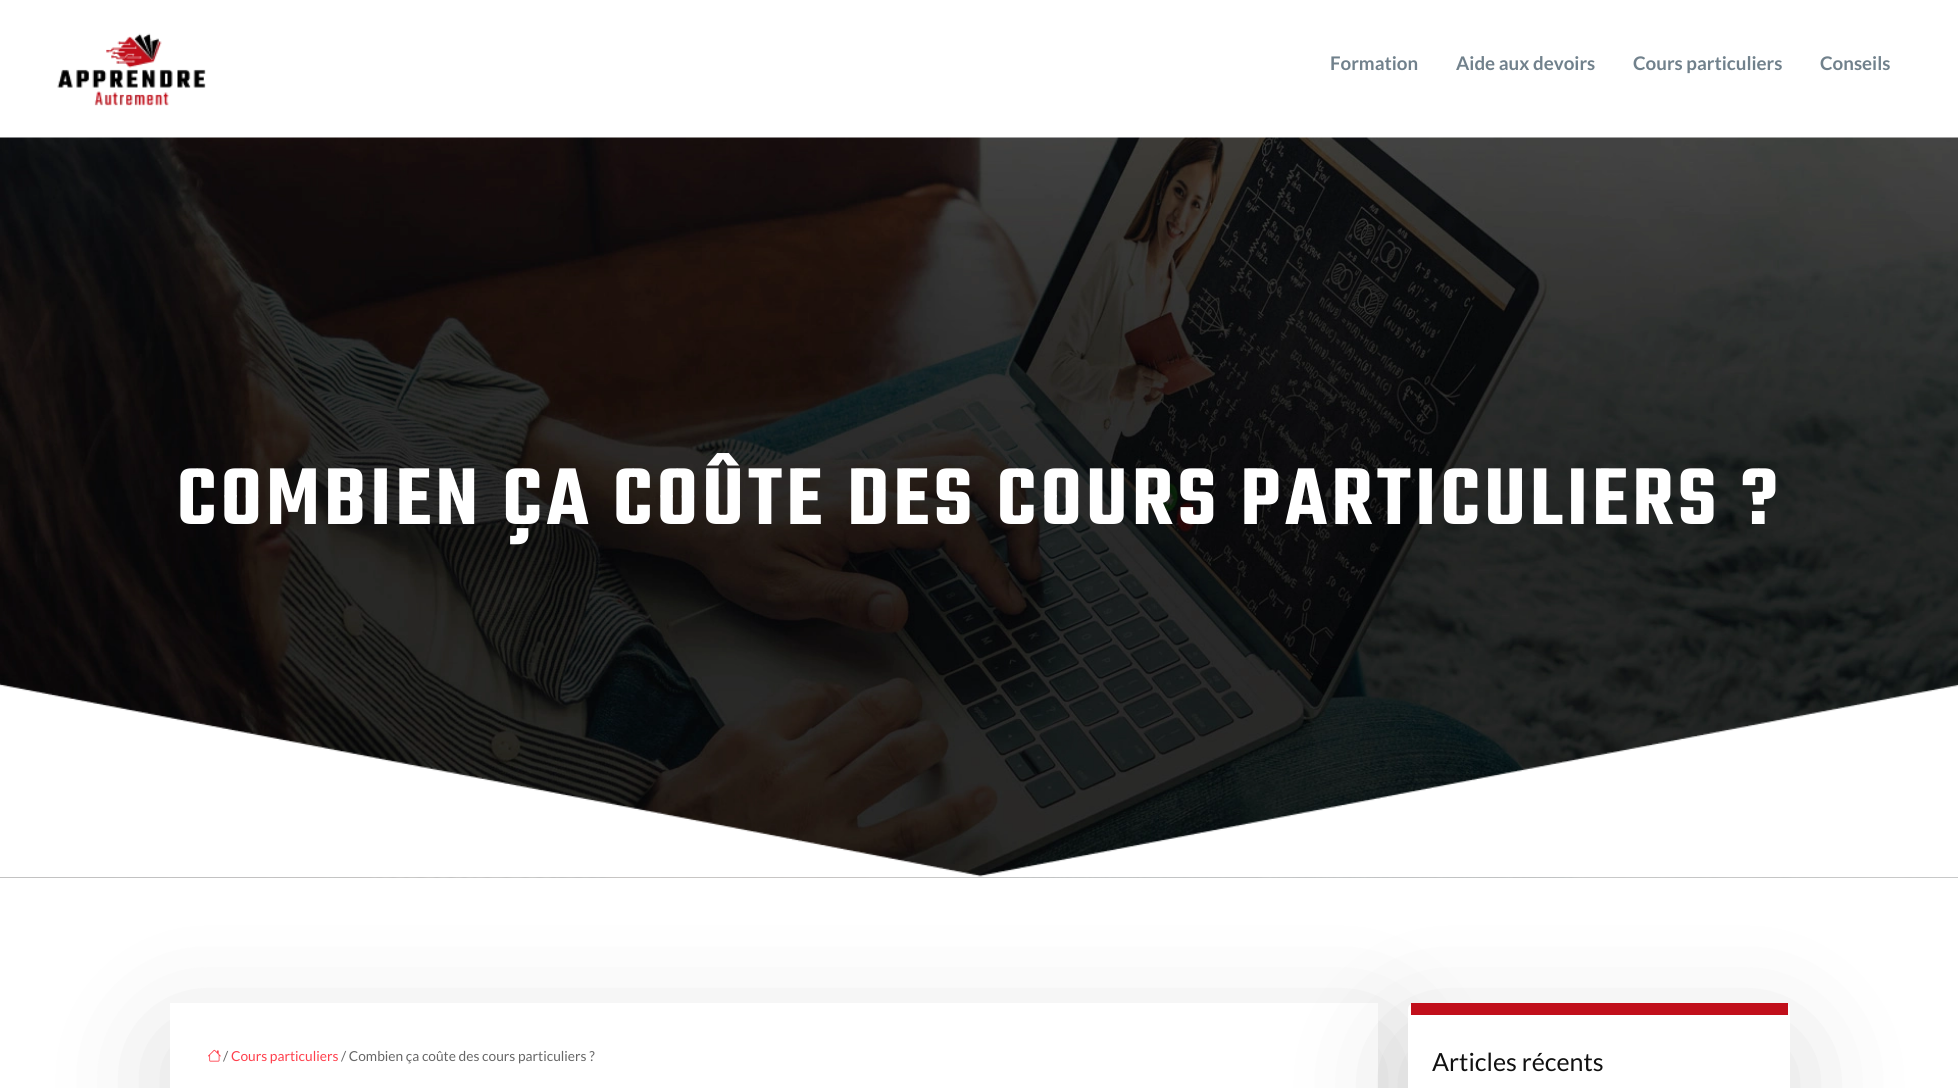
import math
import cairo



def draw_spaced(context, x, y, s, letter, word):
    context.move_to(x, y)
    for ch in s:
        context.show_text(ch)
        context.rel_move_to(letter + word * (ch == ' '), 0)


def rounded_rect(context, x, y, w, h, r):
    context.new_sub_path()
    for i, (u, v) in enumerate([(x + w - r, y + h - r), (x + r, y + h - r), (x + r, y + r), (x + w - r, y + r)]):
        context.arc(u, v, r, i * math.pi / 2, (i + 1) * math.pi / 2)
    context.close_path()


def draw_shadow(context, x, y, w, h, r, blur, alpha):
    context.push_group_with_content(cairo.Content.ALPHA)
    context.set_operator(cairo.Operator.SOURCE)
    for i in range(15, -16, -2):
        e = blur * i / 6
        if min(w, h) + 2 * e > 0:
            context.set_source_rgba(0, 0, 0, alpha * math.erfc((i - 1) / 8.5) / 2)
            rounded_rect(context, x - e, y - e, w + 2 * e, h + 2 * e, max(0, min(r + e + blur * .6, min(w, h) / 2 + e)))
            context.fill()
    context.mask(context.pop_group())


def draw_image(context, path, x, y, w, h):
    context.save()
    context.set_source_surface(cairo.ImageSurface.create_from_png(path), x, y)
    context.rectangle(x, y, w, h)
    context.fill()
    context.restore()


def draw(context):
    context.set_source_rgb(1, 1, 1)
    context.paint()
    draw_image(context, "images/1.png", 57, 33, 149, 73)
    context.set_source_rgb(6 / 255, 6 / 255, 6 / 255)
    draw_shadow(context, 170, 1040, 1208, 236, 0, 62.5, 0.14)
    context.set_source_rgb(1, 1, 1)
    context.rectangle(170, 1003, 1208, 85)
    context.fill()
    context.set_source_rgb(6 / 255, 6 / 255, 6 / 255)
    draw_shadow(context, 1408, 1040, 382, 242, 6, 62.5, 0.14)
    draw_image(context, "images/2.png", 0, 137, 1958, 741)
    draw_image(context, "images/3.png", 0, 683, 1958, 195)
    draw_image(context, "images/4.png", 208, 1049, 13, 13)
    context.set_source_rgb(1, 1, 1)
    rounded_rect(context, 1408, 1003, 382, 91, 6)
    context.fill()
    context.set_source_rgb(193 / 255, 15 / 255, 27 / 255)
    context.rectangle(1411, 1003, 377, 12)
    context.fill()
    context.select_font_face("Lato", cairo.FontSlant.NORMAL, cairo.FontWeight.BOLD)
    context.set_font_size(18.75)
    context.set_source_rgb(113 / 255, 129 / 255, 140 / 255)
    context.move_to(1330, 70)
    context.show_text("Formation")
    context.move_to(1456, 70)
    context.show_text("Aide aux devoirs")
    context.move_to(1633, 70)
    context.show_text("Cours particuliers")
    context.move_to(1820, 70)
    context.show_text("Conseils")
    context.select_font_face("Teko SemiBold")
    context.set_font_size(87.5)
    context.set_source_rgb(1, 1, 1)
    draw_spaced(context, 177, 524, "COMBIEN ÇA COÛTE DES COURS PARTICULIERS ?", 4.4, 0)
    context.select_font_face("Lato")
    context.set_font_size(13.75)
    context.set_source_rgb(102 / 255, 102 / 255, 102 / 255)
    context.move_to(223, 1061)
    context.show_text("/")
    context.set_source_rgb(1, 63 / 255, 76 / 255)
    context.move_to(231, 1061)
    context.show_text("Cours particuliers")
    context.set_source_rgb(102 / 255, 102 / 255, 102 / 255)
    context.move_to(341, 1061)
    context.show_text("/ Combien ça coûte des cours particuliers ?")
    context.set_font_size(25)
    context.set_source_rgb(17 / 255, 17 / 255, 17 / 255)
    context.move_to(1432, 1071)
    context.show_text("Articles récents")


surface = cairo.ImageSurface(cairo.Format.RGB24, 1958, 1088)
context = cairo.Context(surface)
options = cairo.FontOptions()
options.set_hint_metrics(cairo.HintMetrics.OFF)
options.set_hint_style(cairo.HintStyle.NONE)
context.set_font_options(options)
context.set_miter_limit(4)
draw(context)
surface.write_to_png("out.png")
